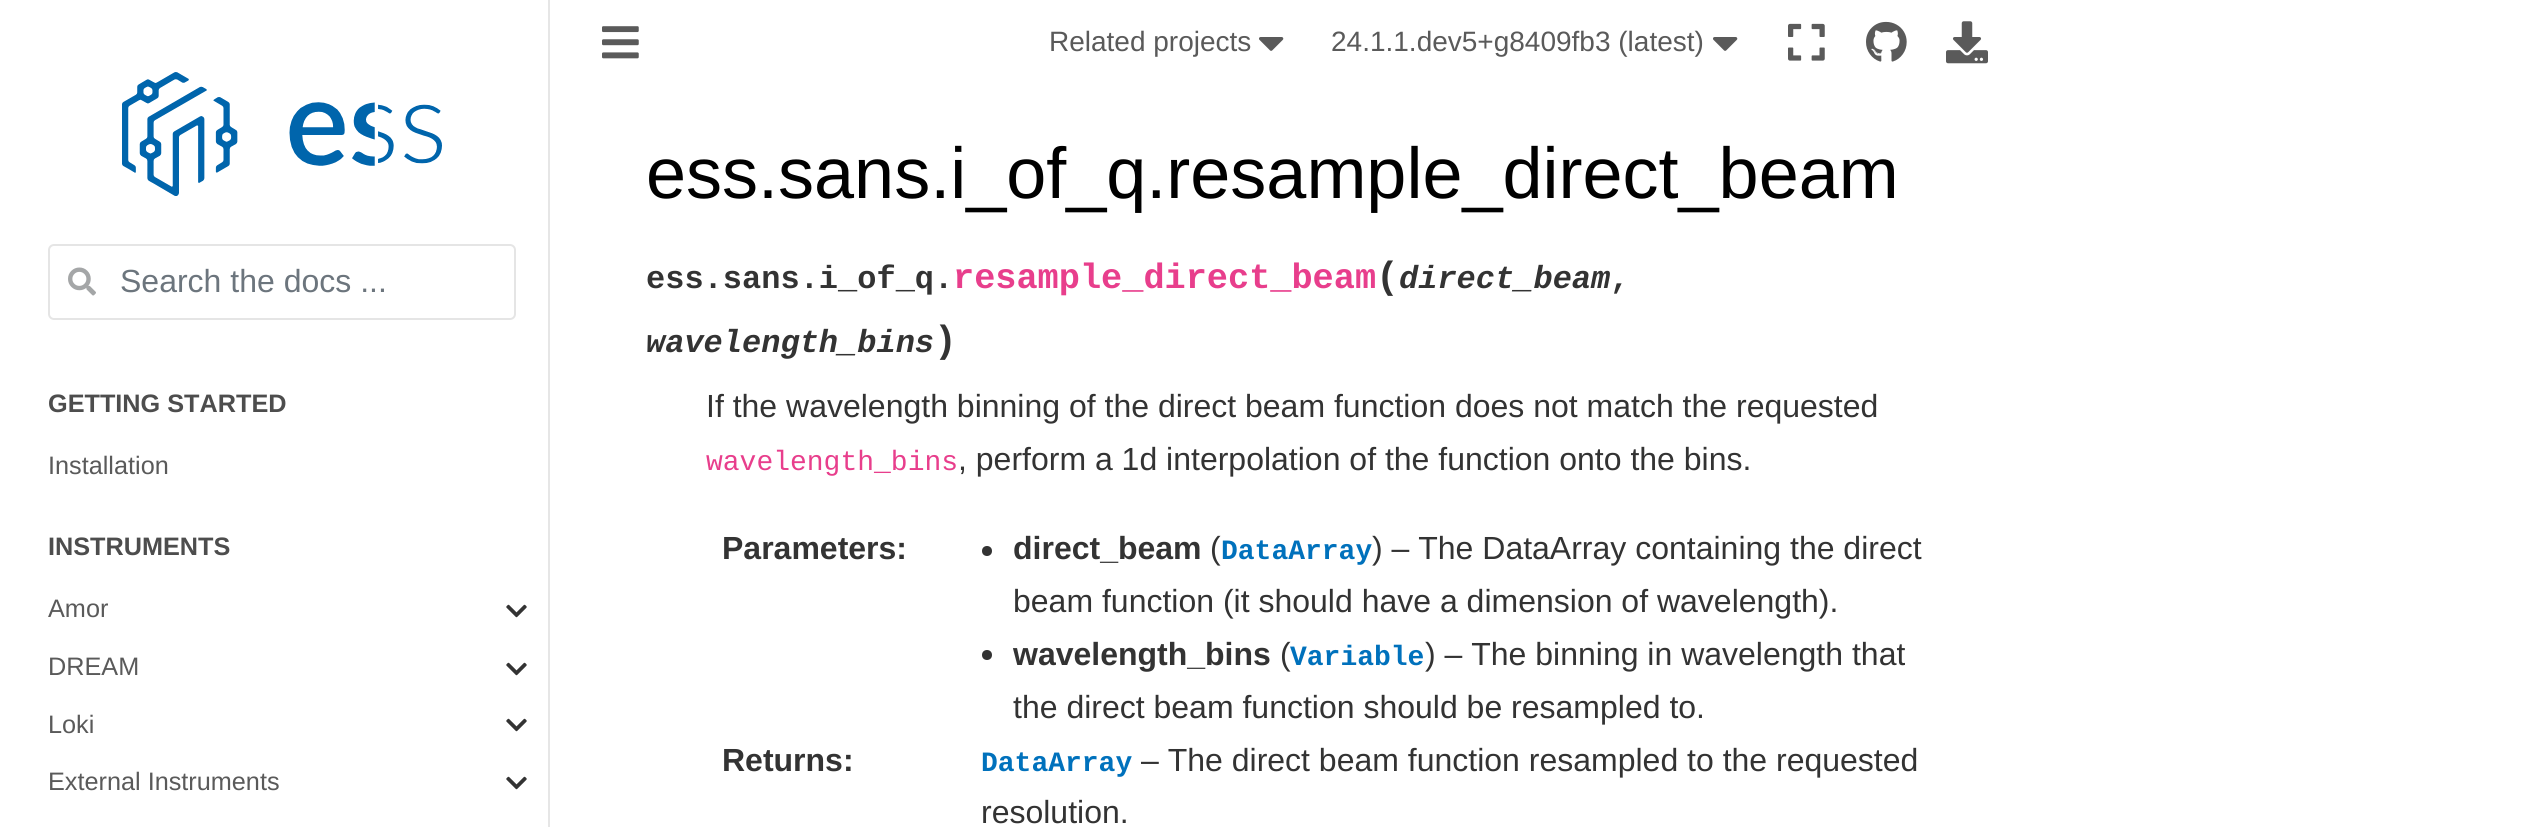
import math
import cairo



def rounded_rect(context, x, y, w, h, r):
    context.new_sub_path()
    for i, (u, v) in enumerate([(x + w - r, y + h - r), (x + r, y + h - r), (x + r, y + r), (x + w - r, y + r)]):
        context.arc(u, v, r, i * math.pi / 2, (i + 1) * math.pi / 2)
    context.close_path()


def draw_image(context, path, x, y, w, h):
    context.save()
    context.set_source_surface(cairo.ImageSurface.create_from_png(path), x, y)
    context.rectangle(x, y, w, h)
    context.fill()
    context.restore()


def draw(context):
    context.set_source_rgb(1, 1, 1)
    context.paint()
    context.set_source_rgb(230 / 255, 230 / 255, 230 / 255)
    context.rectangle(548, 0, 2, 827)
    context.fill()
    draw_image(context, "images/1.png", 122, 72, 320, 124)
    rounded_rect(context, 49, 245, 466, 74, 5)
    context.set_source_rgb(229 / 255, 229 / 255, 229 / 255)
    context.stroke()
    draw_image(context, "images/2.png", 68, 267, 28, 29)
    draw_image(context, "images/3.png", 506, 604, 21, 14)
    draw_image(context, "images/3.png", 506, 662, 21, 14)
    draw_image(context, "images/3.png", 506, 718, 21, 14)
    draw_image(context, "images/3.png", 506, 776, 21, 14)
    draw_image(context, "images/4.png", 602, 26, 37, 33)
    draw_image(context, "images/5.png", 1259, 37, 25, 14)
    draw_image(context, "images/5.png", 1713, 37, 25, 14)
    draw_image(context, "images/6.png", 1788, 23, 37, 38)
    draw_image(context, "images/7.png", 1866, 21, 41, 41)
    draw_image(context, "images/8.png", 1946, 21, 42, 43)
    context.set_source_rgb(51 / 255, 51 / 255, 51 / 255)
    context.arc(987, 551, 5, 0, 2 * math.pi)
    context.fill()
    context.arc(987, 655, 5, 0, 2 * math.pi)
    context.fill()
    context.select_font_face("Liberation Sans")
    context.set_font_size(32)
    context.set_source_rgb(108 / 255, 117 / 255, 125 / 255)
    context.move_to(120, 292)
    context.show_text("Search the docs ...")
    context.select_font_face("Liberation Sans", cairo.FontSlant.NORMAL, cairo.FontWeight.BOLD)
    context.set_font_size(25.25)
    context.set_source_rgb(77 / 255, 77 / 255, 77 / 255)
    context.move_to(48, 412)
    context.show_text("GETTING STARTED")
    context.select_font_face("Liberation Sans")
    context.set_source_rgb(90 / 255, 90 / 255, 90 / 255)
    context.move_to(48, 474)
    context.show_text("Installation")
    context.select_font_face("Liberation Sans", cairo.FontSlant.NORMAL, cairo.FontWeight.BOLD)
    context.set_source_rgb(77 / 255, 77 / 255, 77 / 255)
    context.move_to(48, 555)
    context.show_text("INSTRUMENTS")
    context.select_font_face("Liberation Sans")
    context.set_source_rgb(90 / 255, 90 / 255, 90 / 255)
    context.move_to(48, 617)
    context.show_text("Amor")
    context.move_to(48, 675)
    context.show_text("DREAM")
    context.move_to(48, 733)
    context.show_text("Loki")
    context.move_to(48, 790)
    context.show_text("External Instruments")
    context.set_font_size(28)
    context.move_to(1049, 51)
    context.show_text("Related projects")
    context.move_to(1331, 51)
    context.show_text("24.1.1.dev5+g8409fb3 (latest)")
    context.set_font_size(72)
    context.set_source_rgb(0, 0, 0)
    context.move_to(646, 198)
    context.show_text("ess.sans.i_of_q.resample_direct_beam")
    context.select_font_face("Liberation Mono", cairo.FontSlant.NORMAL, cairo.FontWeight.BOLD)
    context.set_font_size(32)
    context.set_source_rgb(51 / 255, 51 / 255, 51 / 255)
    context.move_to(646, 288)
    context.show_text("ess.sans.i_of_q.")
    context.set_font_size(35.25)
    context.set_source_rgb(232 / 255, 62 / 255, 140 / 255)
    context.move_to(953, 288)
    context.show_text("resample_direct_beam")
    context.set_font_size(38)
    context.set_source_rgb(51 / 255, 51 / 255, 51 / 255)
    context.move_to(1376, 288)
    context.show_text("(")
    context.select_font_face("Liberation Mono", cairo.FontSlant.ITALIC, cairo.FontWeight.BOLD)
    context.set_font_size(32)
    context.move_to(1399, 288)
    context.show_text("direct_beam")
    context.select_font_face("Liberation Mono", cairo.FontSlant.NORMAL, cairo.FontWeight.BOLD)
    context.move_to(1610, 288)
    context.show_text(",")
    context.select_font_face("Liberation Mono", cairo.FontSlant.ITALIC, cairo.FontWeight.BOLD)
    context.move_to(646, 352)
    context.show_text("wavelength_bins")
    context.select_font_face("Liberation Mono", cairo.FontSlant.NORMAL, cairo.FontWeight.BOLD)
    context.set_font_size(38)
    context.move_to(934, 352)
    context.show_text(")")
    context.select_font_face("Liberation Sans")
    context.set_font_size(32)
    context.move_to(706, 417)
    context.show_text("If the wavelength binning of the direct beam function does not match the requested")
    context.select_font_face("Liberation Mono")
    context.set_font_size(28)
    context.set_source_rgb(232 / 255, 62 / 255, 140 / 255)
    context.move_to(706, 470)
    context.show_text("wavelength_bins")
    context.select_font_face("Liberation Sans")
    context.set_font_size(32)
    context.set_source_rgb(51 / 255, 51 / 255, 51 / 255)
    context.move_to(958, 470)
    context.show_text(", perform a 1d interpolation of the function onto the bins.")
    context.select_font_face("Liberation Sans", cairo.FontSlant.NORMAL, cairo.FontWeight.BOLD)
    context.move_to(722, 559)
    context.show_text("Parameters:")
    context.move_to(1013, 559)
    context.show_text("direct_beam")
    context.select_font_face("Liberation Sans")
    context.move_to(1210, 559)
    context.show_text("(")
    context.select_font_face("Liberation Mono", cairo.FontSlant.NORMAL, cairo.FontWeight.BOLD)
    context.set_font_size(28)
    context.set_source_rgb(0, 113 / 255, 188 / 255)
    context.move_to(1221, 559)
    context.show_text("DataArray")
    context.select_font_face("Liberation Sans")
    context.set_font_size(32)
    context.set_source_rgb(51 / 255, 51 / 255, 51 / 255)
    context.move_to(1372, 559)
    context.show_text(") – The DataArray containing the direct")
    context.move_to(1013, 612)
    context.show_text("beam function (it should have a dimension of wavelength).")
    context.select_font_face("Liberation Sans", cairo.FontSlant.NORMAL, cairo.FontWeight.BOLD)
    context.move_to(1013, 665)
    context.show_text("wavelength_bins")
    context.select_font_face("Liberation Sans")
    context.move_to(1280, 665)
    context.show_text("(")
    context.select_font_face("Liberation Mono", cairo.FontSlant.NORMAL, cairo.FontWeight.BOLD)
    context.set_font_size(28)
    context.set_source_rgb(0, 113 / 255, 188 / 255)
    context.move_to(1290, 665)
    context.show_text("Variable")
    context.select_font_face("Liberation Sans")
    context.set_font_size(32)
    context.set_source_rgb(51 / 255, 51 / 255, 51 / 255)
    context.move_to(1425, 665)
    context.show_text(") – The binning in wavelength that")
    context.move_to(1013, 718)
    context.show_text("the direct beam function should be resampled to.")
    context.select_font_face("Liberation Sans", cairo.FontSlant.NORMAL, cairo.FontWeight.BOLD)
    context.move_to(722, 771)
    context.show_text("Returns:")
    context.select_font_face("Liberation Mono", cairo.FontSlant.NORMAL, cairo.FontWeight.BOLD)
    context.set_font_size(28)
    context.set_source_rgb(0, 113 / 255, 188 / 255)
    context.move_to(981, 771)
    context.show_text("DataArray")
    context.select_font_face("Liberation Sans")
    context.set_font_size(32)
    context.set_source_rgb(51 / 255, 51 / 255, 51 / 255)
    context.move_to(1141, 771)
    context.show_text("– The direct beam function resampled to the requested")
    context.move_to(981, 823)
    context.show_text("resolution.")


surface = cairo.ImageSurface(cairo.Format.RGB24, 2532, 827)
context = cairo.Context(surface)
options = cairo.FontOptions()
options.set_hint_metrics(cairo.HintMetrics.OFF)
options.set_hint_style(cairo.HintStyle.NONE)
context.set_font_options(options)
context.set_miter_limit(4)
draw(context)
surface.write_to_png("out.png")
